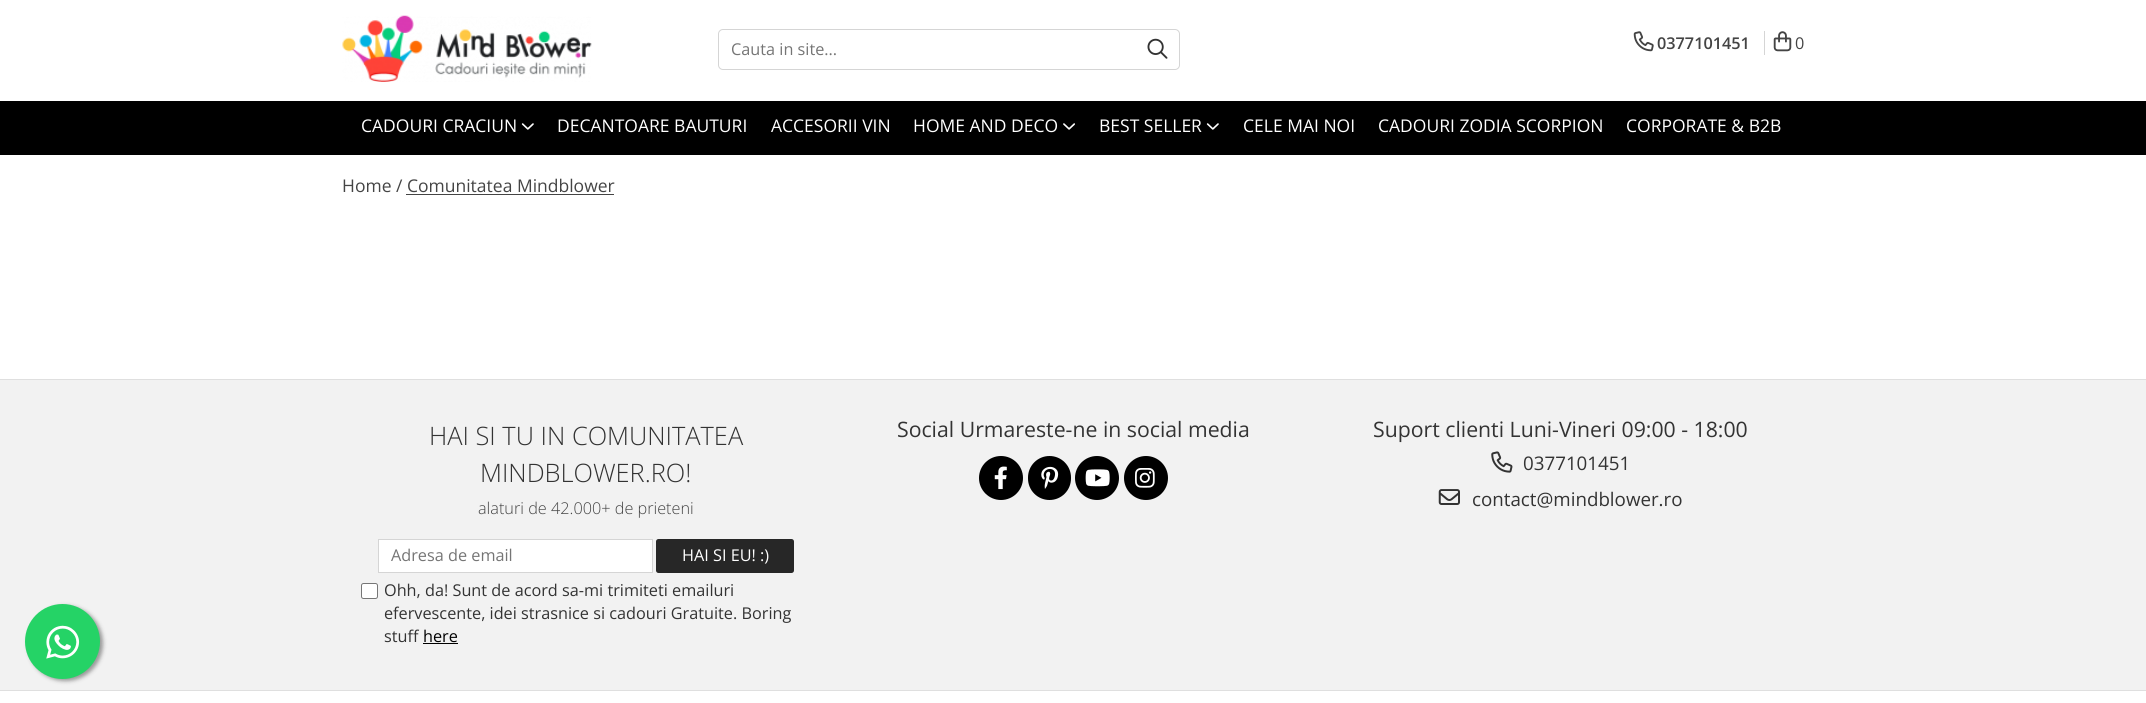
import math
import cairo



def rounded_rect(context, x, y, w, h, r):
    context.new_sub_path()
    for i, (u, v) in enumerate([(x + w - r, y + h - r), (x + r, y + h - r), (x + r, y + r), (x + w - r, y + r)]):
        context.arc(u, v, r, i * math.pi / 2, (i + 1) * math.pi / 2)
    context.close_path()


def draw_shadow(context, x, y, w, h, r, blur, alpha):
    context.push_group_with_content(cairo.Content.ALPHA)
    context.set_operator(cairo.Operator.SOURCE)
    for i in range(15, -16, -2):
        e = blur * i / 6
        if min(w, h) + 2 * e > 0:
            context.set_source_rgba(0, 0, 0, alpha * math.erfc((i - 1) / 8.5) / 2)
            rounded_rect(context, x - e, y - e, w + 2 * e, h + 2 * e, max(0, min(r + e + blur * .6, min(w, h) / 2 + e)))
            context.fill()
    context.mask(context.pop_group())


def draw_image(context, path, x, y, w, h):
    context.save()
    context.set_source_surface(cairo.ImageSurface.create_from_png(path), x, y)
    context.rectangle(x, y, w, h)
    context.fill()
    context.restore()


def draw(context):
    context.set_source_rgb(1, 1, 1)
    context.paint()
    context.set_source_rgb(242 / 255, 242 / 255, 242 / 255)
    context.rectangle(0, 380, 2146, 310)
    context.fill()
    context.set_source_rgb(153 / 255, 153 / 255, 153 / 255)
    draw_shadow(context, 28, 606, 75, 75, 37.5, 2, 1)
    context.set_source_rgb(37 / 255, 211 / 255, 102 / 255)
    context.arc(62.5, 641.5, 37.5, 0, 2 * math.pi)
    context.fill()
    draw_image(context, "images/1.png", 46, 625, 34, 34)
    draw_image(context, "images/2.png", 342, 15, 250, 67)
    rounded_rect(context, 718.5, 29.5, 461, 40, 4.5)
    context.set_source_rgb(213 / 255, 213 / 255, 213 / 255)
    context.set_line_width(1)
    context.stroke()
    draw_image(context, "images/3.png", 1147, 38, 21, 21)
    draw_image(context, "images/4.png", 1633, 31, 21, 21)
    context.rectangle(1764, 31, 1, 24)
    context.fill()
    draw_image(context, "images/5.png", 1773, 31, 19, 21)
    context.set_source_rgb(0, 0, 0)
    context.rectangle(0, 101, 2146, 54)
    context.fill()
    draw_image(context, "images/6.png", 521, 123, 13, 7)
    draw_image(context, "images/7.png", 1063, 123, 12, 7)
    draw_image(context, "images/6.png", 1206, 123, 13, 7)
    context.set_source_rgb(68 / 255, 68 / 255, 68 / 255)
    context.rectangle(406, 194, 208, 1)
    context.fill()
    context.set_source_rgb(223 / 255, 223 / 255, 223 / 255)
    context.rectangle(0, 379, 2146, 1)
    context.fill()
    context.rectangle(0, 690, 2146, 1)
    context.fill()
    context.set_source_rgb(1, 1, 1)
    context.rectangle(378.5, 539.5, 274, 33)
    context.fill_preserve()
    context.set_source_rgb(213 / 255, 213 / 255, 213 / 255)
    context.stroke()
    context.set_source_rgb(39 / 255, 39 / 255, 39 / 255)
    rounded_rect(context, 656, 539, 138, 34, 2.5)
    context.fill()
    context.set_source_rgb(1, 1, 1)
    rounded_rect(context, 361.5, 583.5, 16, 15, 2)
    context.fill_preserve()
    context.set_source_rgb(118 / 255, 118 / 255, 118 / 255)
    context.stroke()
    context.set_source_rgb(0, 0, 0)
    context.rectangle(423, 643, 35, 1)
    context.fill()
    context.arc(1001, 478, 22, 0, 2 * math.pi)
    context.fill()
    draw_image(context, "images/8.png", 994, 466, 13, 24)
    rounded_rect(context, 1028, 456, 43, 44, 21.5)
    context.fill()
    draw_image(context, "images/9.png", 1041, 466, 18, 23)
    context.arc(1097, 478, 22, 0, 2 * math.pi)
    context.fill()
    draw_image(context, "images/10.png", 1085, 469, 25, 18)
    context.arc(1146, 478, 22, 0, 2 * math.pi)
    context.fill()
    draw_image(context, "images/11.png", 1135, 468, 20, 20)
    draw_image(context, "images/12.png", 1491, 451, 22, 22)
    draw_image(context, "images/13.png", 1438, 489, 22, 16)
    context.select_font_face("Open Sans")
    context.set_font_size(16.25)
    context.set_source_rgb(117 / 255, 117 / 255, 117 / 255)
    context.move_to(731, 55)
    context.show_text("Cauta in site...")
    context.select_font_face("Open Sans SemiBold")
    context.set_source_rgb(68 / 255, 68 / 255, 68 / 255)
    context.move_to(1657, 49)
    context.show_text("0377101451")
    context.select_font_face("Open Sans")
    context.move_to(1795, 49)
    context.show_text("0")
    context.set_font_size(17.5)
    context.set_source_rgb(1, 1, 1)
    context.move_to(361, 132)
    context.show_text("CADOURI CRACIUN")
    context.move_to(557, 132)
    context.show_text("DECANTOARE BAUTURI")
    context.move_to(771, 132)
    context.show_text("ACCESORII VIN")
    context.move_to(913, 132)
    context.show_text("HOME AND DECO")
    context.move_to(1099, 132)
    context.show_text("BEST SELLER")
    context.move_to(1243, 132)
    context.show_text("CELE MAI NOI")
    context.move_to(1378, 132)
    context.show_text("CADOURI ZODIA SCORPION")
    context.move_to(1626, 132)
    context.show_text("CORPORATE & B2B")
    context.set_source_rgb(68 / 255, 68 / 255, 68 / 255)
    context.move_to(342, 192)
    context.show_text("Home / Comunitatea Mindblower")
    context.select_font_face("Open Sans Light")
    context.set_font_size(25.4)
    context.set_source_rgb(51 / 255, 51 / 255, 51 / 255)
    context.move_to(429, 445)
    context.show_text("HAI SI TU IN COMUNITATEA")
    context.move_to(480, 482)
    context.show_text("MINDBLOWER.RO!")
    context.set_font_size(16.25)
    context.set_source_rgb(68 / 255, 68 / 255, 68 / 255)
    context.move_to(478, 514)
    context.show_text("alaturi de 42.000+ de prieteni")
    context.select_font_face("Open Sans")
    context.set_source_rgb(117 / 255, 117 / 255, 117 / 255)
    context.move_to(391, 561)
    context.show_text("Adresa de email")
    context.set_source_rgb(1, 1, 1)
    context.move_to(682, 561)
    context.show_text("HAI SI EU! :)")
    context.set_source_rgb(51 / 255, 51 / 255, 51 / 255)
    context.move_to(384, 596)
    context.show_text("Ohh, da! Sunt de acord sa-mi trimiteti emailuri")
    context.move_to(384, 619)
    context.show_text("efervescente, idei strasnice si cadouri Gratuite. Boring")
    context.move_to(384, 642)
    context.show_text("stuff")
    context.set_source_rgb(0, 0, 0)
    context.move_to(423, 642)
    context.show_text("here")
    context.set_font_size(21.25)
    context.set_source_rgb(51 / 255, 51 / 255, 51 / 255)
    context.move_to(897, 437)
    context.show_text("Social Urmareste-ne in social media")
    context.move_to(1373, 437)
    context.show_text("Suport clienti Luni-Vineri 09:00 - 18:00")
    context.set_font_size(18.75)
    context.move_to(1523, 470)
    context.show_text("0377101451")
    context.move_to(1472, 506)
    context.show_text("contact@mindblower.ro")


surface = cairo.ImageSurface(cairo.Format.RGB24, 2146, 703)
context = cairo.Context(surface)
options = cairo.FontOptions()
options.set_hint_metrics(cairo.HintMetrics.OFF)
options.set_hint_style(cairo.HintStyle.NONE)
context.set_font_options(options)
context.set_miter_limit(4)
draw(context)
surface.write_to_png("out.png")
